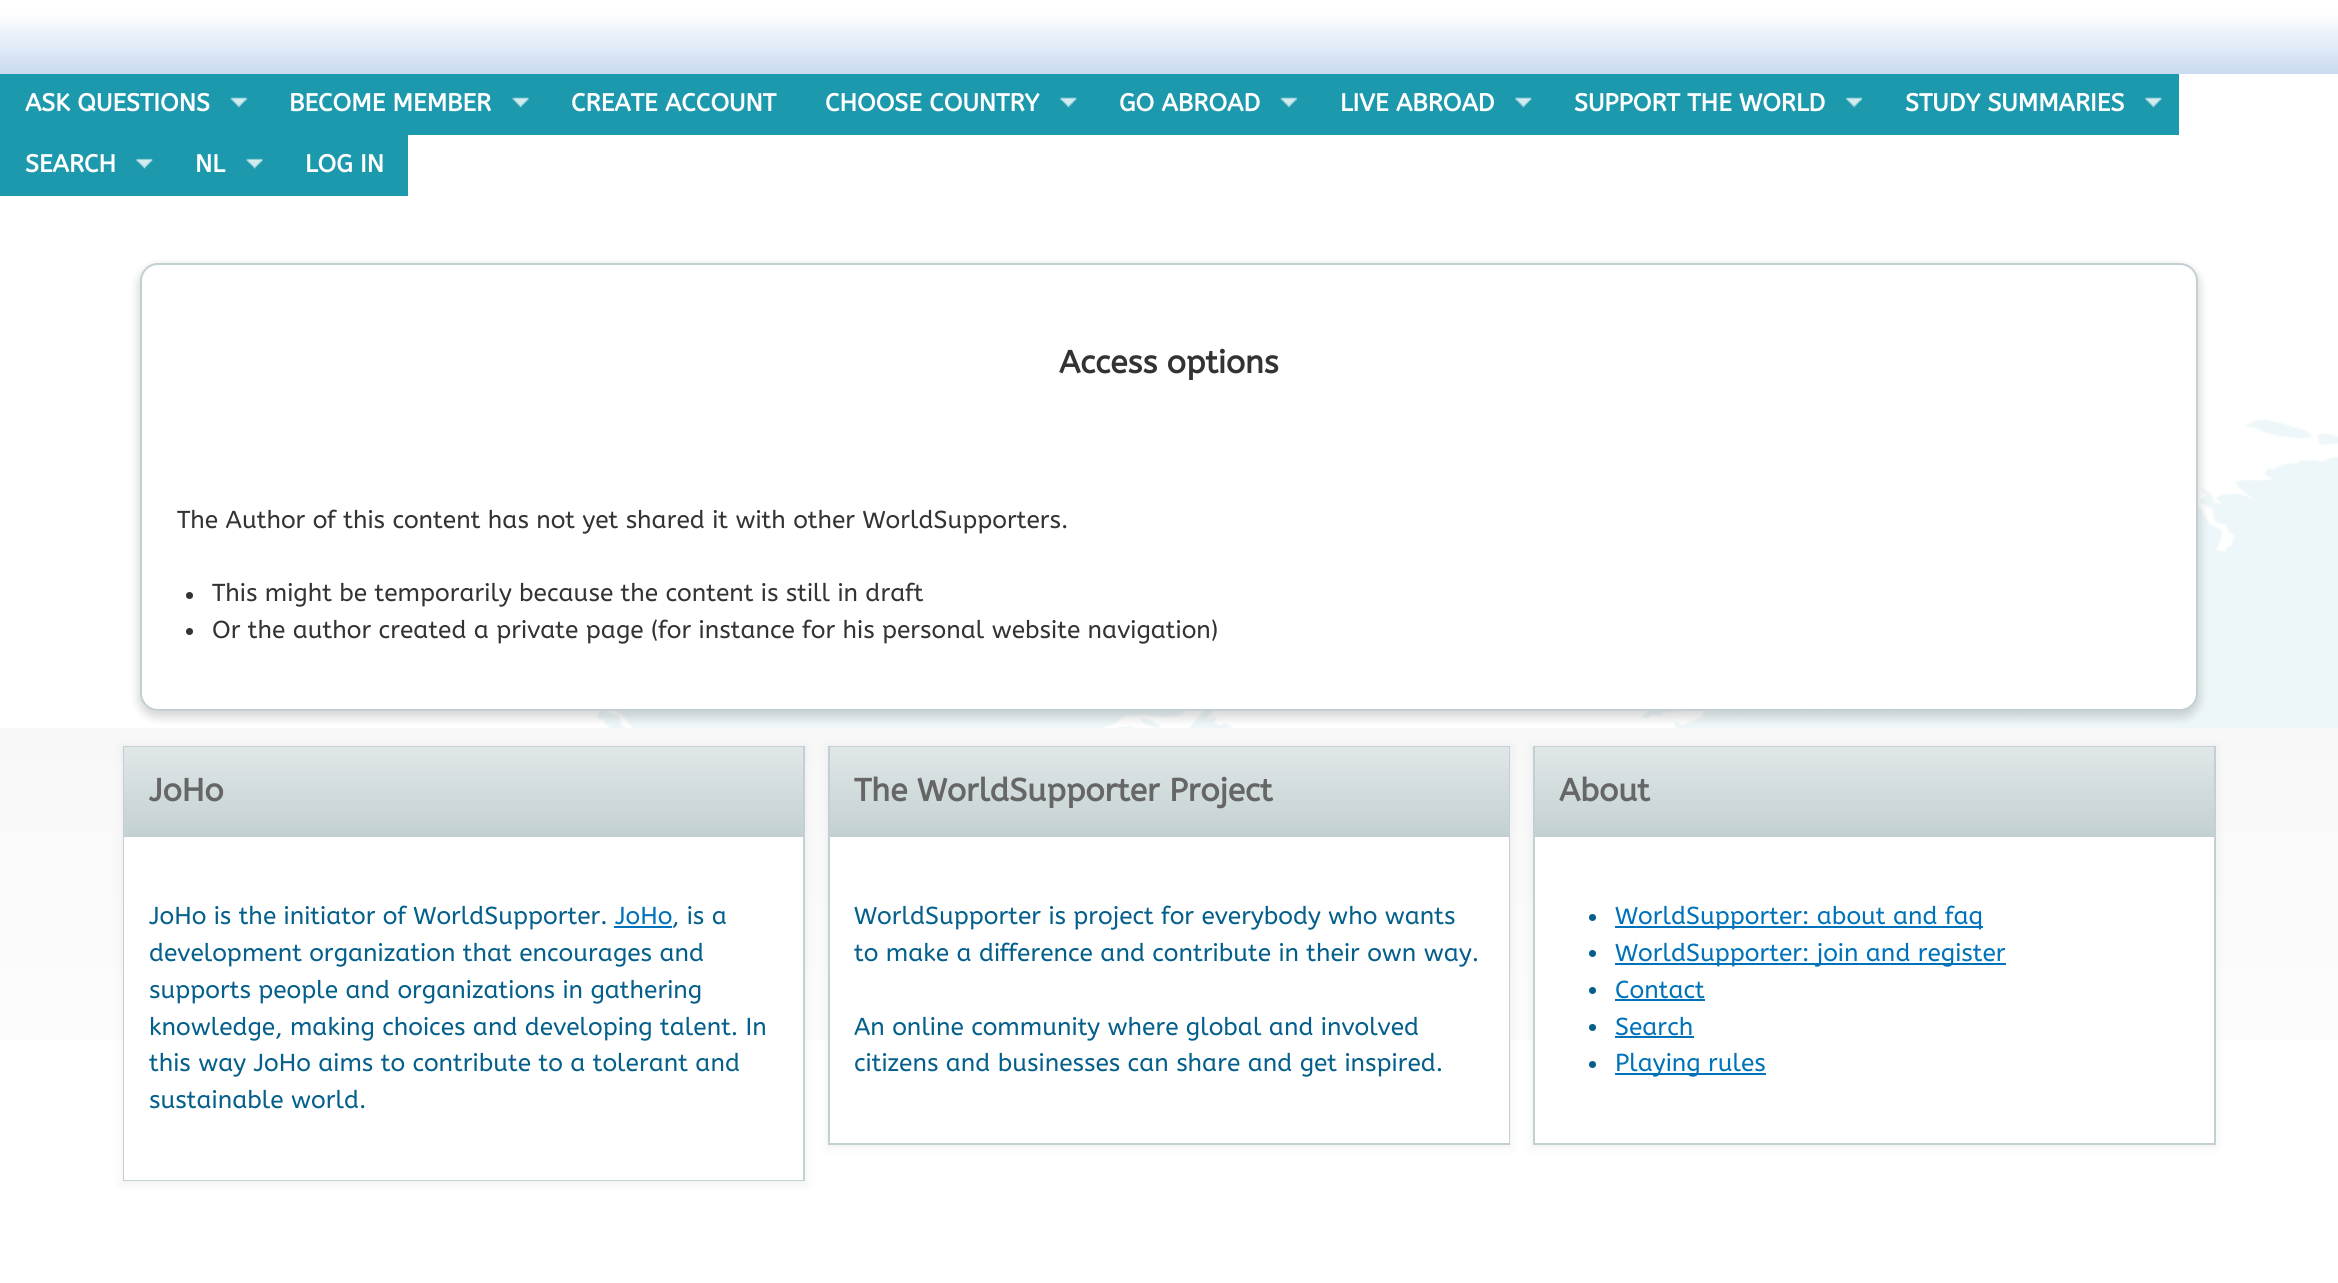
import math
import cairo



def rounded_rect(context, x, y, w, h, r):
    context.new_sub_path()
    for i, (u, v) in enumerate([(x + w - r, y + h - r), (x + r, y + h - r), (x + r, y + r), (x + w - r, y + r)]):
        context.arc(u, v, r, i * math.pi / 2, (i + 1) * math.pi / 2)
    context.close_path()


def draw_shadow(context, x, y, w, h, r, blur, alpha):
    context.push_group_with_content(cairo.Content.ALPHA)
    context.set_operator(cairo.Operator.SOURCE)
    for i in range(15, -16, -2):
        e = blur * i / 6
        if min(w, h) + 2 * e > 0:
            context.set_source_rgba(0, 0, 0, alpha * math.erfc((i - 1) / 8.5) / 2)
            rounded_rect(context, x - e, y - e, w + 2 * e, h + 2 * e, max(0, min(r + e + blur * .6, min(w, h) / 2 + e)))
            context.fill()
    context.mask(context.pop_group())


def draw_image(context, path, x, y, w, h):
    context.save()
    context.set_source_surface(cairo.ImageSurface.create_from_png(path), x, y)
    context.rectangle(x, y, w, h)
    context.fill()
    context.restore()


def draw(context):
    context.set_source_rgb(1, 1, 1)
    context.paint()
    gradient = cairo.LinearGradient(1169, 12, 1169, 74)
    gradient.add_color_stop_rgba(0, 1, 1, 1, 1)
    gradient.add_color_stop_rgba(1, 202 / 255, 218 / 255, 241 / 255, 1)
    context.set_source(gradient)
    context.rectangle(0, 15, 2338, 59)
    context.fill()
    context.set_source_rgb(29 / 255, 153 / 255, 174 / 255)
    context.rectangle(0, 74, 2179, 61)
    context.fill()
    draw_image(context, "images/1.png", 230, 97, 17, 11)
    draw_image(context, "images/2.png", 512, 97, 17, 11)
    draw_image(context, "images/3.png", 1060, 97, 17, 11)
    draw_image(context, "images/1.png", 1280, 97, 17, 11)
    draw_image(context, "images/3.png", 1515, 97, 17, 11)
    draw_image(context, "images/4.png", 1845, 97, 17, 11)
    draw_image(context, "images/3.png", 2145, 97, 17, 11)
    context.rectangle(0, 135, 408, 61)
    context.fill()
    draw_image(context, "images/5.png", 136, 158, 17, 11)
    draw_image(context, "images/6.png", 246, 158, 17, 11)
    draw_image(context, "images/7.png", 597, 419, 1741, 309)
    context.set_source_rgb(0, 0, 0)
    draw_shadow(context, 138, 266, 2062, 452, 19, 4.5, 0.15)
    context.set_source_rgb(1, 1, 1)
    rounded_rect(context, 141, 264, 2056, 446, 17)
    context.fill_preserve()
    context.set_source_rgb(194 / 255, 208 / 255, 211 / 255)
    context.stroke()
    context.set_source_rgb(51 / 255, 51 / 255, 51 / 255)
    context.arc(189.5, 595.5, 3.5, 0, 2 * math.pi)
    context.fill()
    context.arc(189.5, 631.5, 3.5, 0, 2 * math.pi)
    context.fill()
    gradient = cairo.LinearGradient(1169, 728, 1169, 1213)
    gradient.add_color_stop_rgba(0, 248 / 255, 248 / 255, 248 / 255, 1)
    gradient.add_color_stop_rgba(1, 1, 1, 1, 1)
    context.set_source(gradient)
    context.rectangle(0, 728, 2338, 312)
    context.fill()
    context.set_source_rgb(0, 0, 0)
    draw_shadow(context, 121, 746, 686, 439, 0, 4.5, 0.05)
    context.rectangle(124, 747, 680, 433)
    context.set_source_rgb(194 / 255, 208 / 255, 211 / 255)
    context.stroke()
    context.set_source_rgb(1, 1, 1)
    context.rectangle(124, 837, 679, 343)
    context.fill()
    gradient = cairo.LinearGradient(464, 747, 464, 837)
    gradient.add_color_stop_rgba(0, 224 / 255, 231 / 255, 232 / 255, 1)
    gradient.add_color_stop_rgba(1, 195 / 255, 208 / 255, 210 / 255, 1)
    context.set_source(gradient)
    context.rectangle(124, 747, 679, 90)
    context.fill()
    context.set_source_rgb(0, 114 / 255, 185 / 255)
    context.rectangle(614, 926, 58, 2)
    context.fill()
    context.set_source_rgb(0, 0, 0)
    draw_shadow(context, 826, 746, 686, 402, 0, 4.5, 0.05)
    context.rectangle(829, 747, 680, 397)
    context.set_source_rgb(194 / 255, 208 / 255, 211 / 255)
    context.stroke()
    context.set_source_rgb(1, 1, 1)
    context.rectangle(830, 837, 679, 306)
    context.fill()
    gradient = cairo.LinearGradient(1169, 747, 1169, 837)
    gradient.add_color_stop_rgba(0, 224 / 255, 231 / 255, 232 / 255, 1)
    gradient.add_color_stop_rgba(1, 195 / 255, 208 / 255, 210 / 255, 1)
    context.set_source(gradient)
    context.rectangle(830, 747, 679, 90)
    context.fill()
    context.set_source_rgb(0, 0, 0)
    draw_shadow(context, 1531, 746, 686, 402, 0, 4.5, 0.05)
    context.rectangle(1534, 747, 681, 397)
    context.set_source_rgb(194 / 255, 208 / 255, 211 / 255)
    context.stroke()
    context.set_source_rgb(1, 1, 1)
    context.rectangle(1535, 837, 679, 306)
    context.fill()
    gradient = cairo.LinearGradient(1874, 747, 1874, 837)
    gradient.add_color_stop_rgba(0, 224 / 255, 231 / 255, 232 / 255, 1)
    gradient.add_color_stop_rgba(1, 195 / 255, 208 / 255, 210 / 255, 1)
    context.set_source(gradient)
    context.rectangle(1535, 747, 679, 90)
    context.fill()
    context.set_source_rgb(4 / 255, 95 / 255, 139 / 255)
    context.arc(1592.5, 917.5, 3.5, 0, 2 * math.pi)
    context.fill()
    context.set_source_rgb(0, 114 / 255, 185 / 255)
    context.rectangle(1615, 926, 368, 2)
    context.fill()
    context.set_source_rgb(4 / 255, 95 / 255, 139 / 255)
    context.arc(1592.5, 953.5, 3.5, 0, 2 * math.pi)
    context.fill()
    context.set_source_rgb(0, 114 / 255, 185 / 255)
    context.rectangle(1615, 963, 391, 2)
    context.fill()
    context.set_source_rgb(4 / 255, 95 / 255, 139 / 255)
    context.arc(1592.5, 990.5, 3.5, 0, 2 * math.pi)
    context.fill()
    context.set_source_rgb(0, 114 / 255, 185 / 255)
    context.rectangle(1615, 999, 90, 2)
    context.fill()
    context.set_source_rgb(4 / 255, 95 / 255, 139 / 255)
    context.arc(1592.5, 1027.5, 3.5, 0, 2 * math.pi)
    context.fill()
    context.set_source_rgb(0, 114 / 255, 185 / 255)
    context.rectangle(1615, 1036, 79, 2)
    context.fill()
    context.set_source_rgb(4 / 255, 95 / 255, 139 / 255)
    context.arc(1592.5, 1064.5, 3.5, 0, 2 * math.pi)
    context.fill()
    context.set_source_rgb(0, 114 / 255, 185 / 255)
    context.rectangle(1615, 1073, 151, 2)
    context.fill()
    context.select_font_face("ABeeZee", cairo.FontSlant.NORMAL, cairo.FontWeight.BOLD)
    context.set_font_size(24.5)
    context.set_source_rgb(1, 1, 1)
    context.move_to(25, 111)
    context.show_text("ASK QUESTIONS")
    context.move_to(289, 111)
    context.show_text("BECOME MEMBER")
    context.move_to(571, 111)
    context.show_text("CREATE ACCOUNT")
    context.move_to(825, 111)
    context.show_text("CHOOSE COUNTRY")
    context.move_to(1119, 111)
    context.show_text("GO ABROAD")
    context.move_to(1340, 111)
    context.show_text("LIVE ABROAD")
    context.move_to(1574, 111)
    context.show_text("SUPPORT THE WORLD")
    context.move_to(1905, 111)
    context.show_text("STUDY SUMMARIES")
    context.move_to(25, 172)
    context.show_text("SEARCH")
    context.move_to(195, 172)
    context.show_text("NL")
    context.move_to(305, 172)
    context.show_text("LOG IN")
    context.set_font_size(31.8)
    context.set_source_rgb(51 / 255, 51 / 255, 51 / 255)
    context.move_to(1059, 373)
    context.show_text("Access options")
    context.select_font_face("ABeeZee")
    context.set_font_size(24.5)
    context.move_to(177, 528)
    context.show_text("The Author of this content has not yet shared it with other WorldSupporters.")
    context.move_to(212, 601)
    context.show_text("This might be temporarily because the content is still in draft")
    context.move_to(212, 638)
    context.show_text("Or the author created a private page (for instance for his personal website navigation)")
    context.select_font_face("ABeeZee", cairo.FontSlant.NORMAL, cairo.FontWeight.BOLD)
    context.set_font_size(31.8)
    context.set_source_rgb(102 / 255, 102 / 255, 102 / 255)
    context.move_to(149, 801)
    context.show_text("JoHo")
    context.select_font_face("ABeeZee")
    context.set_font_size(24.5)
    context.set_source_rgb(4 / 255, 95 / 255, 139 / 255)
    context.move_to(149, 924)
    context.show_text("JoHo is the initiator of WorldSupporter.")
    context.set_source_rgb(0, 114 / 255, 185 / 255)
    context.move_to(615, 924)
    context.show_text("JoHo")
    context.set_source_rgb(4 / 255, 95 / 255, 139 / 255)
    context.move_to(672, 924)
    context.show_text(", is a")
    context.move_to(149, 961)
    context.show_text("development organization that encourages and")
    context.move_to(149, 998)
    context.show_text("supports people and organizations in gathering")
    context.move_to(149, 1035)
    context.show_text("knowledge, making choices and developing talent. In")
    context.move_to(149, 1071)
    context.show_text("this way JoHo aims to contribute to a tolerant and")
    context.move_to(149, 1108)
    context.show_text("sustainable world.")
    context.select_font_face("ABeeZee", cairo.FontSlant.NORMAL, cairo.FontWeight.BOLD)
    context.set_font_size(31.8)
    context.set_source_rgb(102 / 255, 102 / 255, 102 / 255)
    context.move_to(854, 801)
    context.show_text("The WorldSupporter Project")
    context.select_font_face("ABeeZee")
    context.set_font_size(24.5)
    context.set_source_rgb(4 / 255, 95 / 255, 139 / 255)
    context.move_to(854, 924)
    context.show_text("WorldSupporter is project for everybody who wants")
    context.move_to(854, 961)
    context.show_text("to make a difference and contribute in their own way.")
    context.move_to(854, 1035)
    context.show_text("An online community where global and involved")
    context.move_to(854, 1071)
    context.show_text("citizens and businesses can share and get inspired.")
    context.select_font_face("ABeeZee", cairo.FontSlant.NORMAL, cairo.FontWeight.BOLD)
    context.set_font_size(31.8)
    context.set_source_rgb(102 / 255, 102 / 255, 102 / 255)
    context.move_to(1559, 801)
    context.show_text("About")
    context.select_font_face("ABeeZee")
    context.set_font_size(24.5)
    context.set_source_rgb(0, 114 / 255, 185 / 255)
    context.move_to(1615, 924)
    context.show_text("WorldSupporter: about and faq")
    context.move_to(1615, 961)
    context.show_text("WorldSupporter: join and register")
    context.move_to(1615, 998)
    context.show_text("Contact")
    context.move_to(1615, 1035)
    context.show_text("Search")
    context.move_to(1615, 1071)
    context.show_text("Playing rules")


surface = cairo.ImageSurface(cairo.Format.RGB24, 2338, 1283)
context = cairo.Context(surface)
options = cairo.FontOptions()
options.set_hint_metrics(cairo.HintMetrics.OFF)
options.set_hint_style(cairo.HintStyle.NONE)
context.set_font_options(options)
context.set_miter_limit(4)
draw(context)
surface.write_to_png("out.png")
